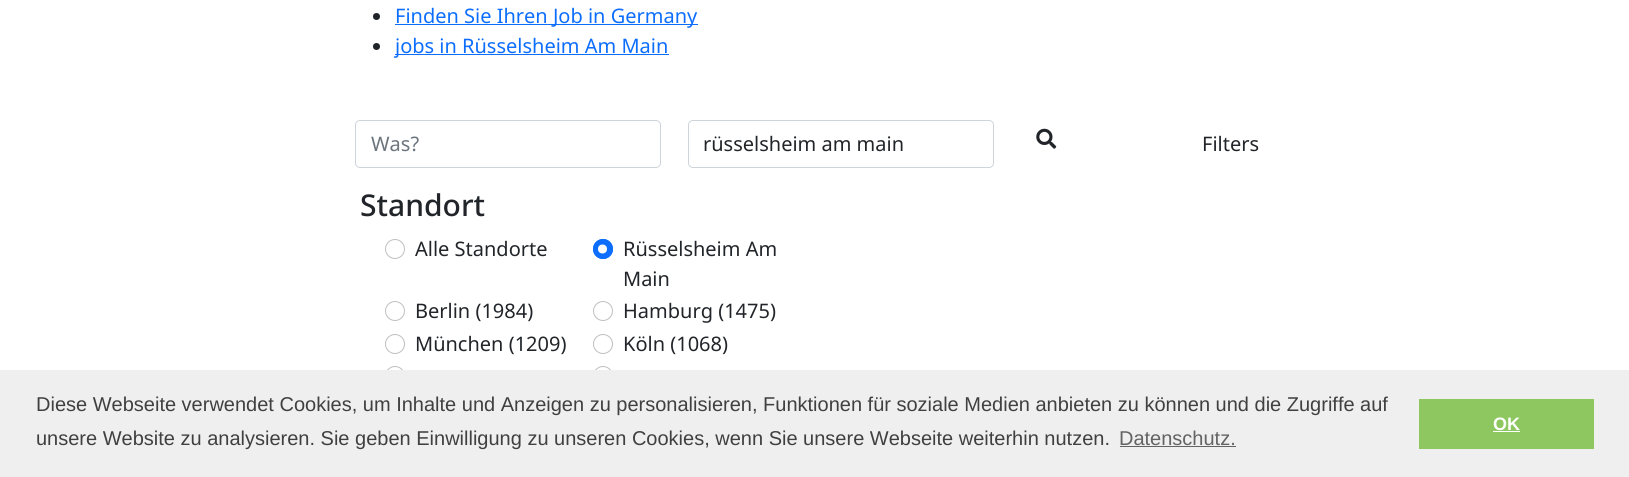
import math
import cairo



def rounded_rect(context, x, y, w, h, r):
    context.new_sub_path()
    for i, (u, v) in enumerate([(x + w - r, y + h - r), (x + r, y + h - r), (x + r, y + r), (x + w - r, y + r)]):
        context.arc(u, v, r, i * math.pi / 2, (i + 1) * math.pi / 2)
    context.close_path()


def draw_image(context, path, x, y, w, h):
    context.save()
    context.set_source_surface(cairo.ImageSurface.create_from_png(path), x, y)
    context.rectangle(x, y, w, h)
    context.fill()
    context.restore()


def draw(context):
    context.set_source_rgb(1, 1, 1)
    context.paint()
    context.set_source_rgb(33 / 255, 37 / 255, 41 / 255)
    context.arc(376.5, 16.5, 3.5, 0, 2 * math.pi)
    context.fill()
    context.set_source_rgb(13 / 255, 110 / 255, 253 / 255)
    context.rectangle(395, 24, 303, 1)
    context.fill()
    context.set_source_rgb(33 / 255, 37 / 255, 41 / 255)
    context.arc(376.5, 46.5, 3.5, 0, 2 * math.pi)
    context.fill()
    context.set_source_rgb(13 / 255, 110 / 255, 253 / 255)
    context.rectangle(395, 54, 274, 1)
    context.fill()
    rounded_rect(context, 355.5, 120.5, 305, 47, 4.5)
    context.set_source_rgb(206 / 255, 212 / 255, 218 / 255)
    context.set_line_width(1)
    context.stroke()
    rounded_rect(context, 688.5, 120.5, 305, 47, 4.5)
    context.stroke()
    draw_image(context, "images/1.png", 1036, 128, 21, 21)
    context.arc(395, 249, 9.5, 0, 2 * math.pi)
    context.set_source_rgb(191 / 255, 191 / 255, 191 / 255)
    context.stroke()
    context.set_source_rgb(13 / 255, 110 / 255, 253 / 255)
    context.arc(603, 249, 10, 0, 2 * math.pi)
    context.fill()
    context.set_source_rgb(1, 1, 1)
    context.arc(602.5, 249, 4.5, 0, 2 * math.pi)
    context.fill()
    context.arc(603, 249, 9.5, 0, 2 * math.pi)
    context.set_source_rgb(13 / 255, 110 / 255, 253 / 255)
    context.stroke()
    context.arc(395, 311, 9.5, 0, 2 * math.pi)
    context.set_source_rgb(191 / 255, 191 / 255, 191 / 255)
    context.stroke()
    context.arc(603, 311, 9.5, 0, 2 * math.pi)
    context.stroke()
    context.arc(395, 344, 9.5, 0, 2 * math.pi)
    context.stroke()
    context.arc(603, 344, 9.5, 0, 2 * math.pi)
    context.stroke()
    context.arc(395, 376, 9.5, 0, 2 * math.pi)
    context.stroke()
    context.arc(603, 376, 9.5, 0, 2 * math.pi)
    context.stroke()
    context.set_source_rgb(239 / 255, 239 / 255, 239 / 255)
    context.rectangle(0, 370, 1629, 107)
    context.fill()
    context.set_source_rgb(99 / 255, 99 / 255, 99 / 255)
    context.rectangle(1120, 446, 116, 1)
    context.fill()
    context.set_source_rgb(142 / 255, 199 / 255, 96 / 255)
    context.rectangle(1419, 399, 175, 50)
    context.fill()
    context.set_source_rgb(1, 1, 1)
    context.rectangle(1493, 431, 27, 1)
    context.fill()
    context.select_font_face("Noto Sans")
    context.set_font_size(20)
    context.set_source_rgb(13 / 255, 110 / 255, 253 / 255)
    context.move_to(395, 23)
    context.show_text("Finden Sie Ihren Job in Germany")
    context.move_to(395, 53)
    context.show_text("jobs in Rüsselsheim Am Main")
    context.set_source_rgb(108 / 255, 117 / 255, 125 / 255)
    context.move_to(371, 151)
    context.show_text("Was?")
    context.set_source_rgb(33 / 255, 37 / 255, 41 / 255)
    context.move_to(703, 151)
    context.show_text("rüsselsheim am main")
    context.move_to(1202, 151)
    context.show_text("Filters")
    context.select_font_face("Noto Sans Medium")
    context.set_font_size(30)
    context.move_to(360, 216)
    context.show_text("Standort")
    context.select_font_face("Noto Sans")
    context.set_font_size(20)
    context.move_to(415, 256)
    context.show_text("Alle Standorte")
    context.move_to(623, 256)
    context.show_text("Rüsselsheim Am")
    context.move_to(623, 286)
    context.show_text("Main")
    context.move_to(415, 318)
    context.show_text("Berlin (1984)")
    context.move_to(623, 318)
    context.show_text("Hamburg (1475)")
    context.move_to(415, 351)
    context.show_text("München (1209)")
    context.move_to(623, 351)
    context.show_text("Köln (1068)")
    context.select_font_face("Liberation Sans")
    context.set_source_rgb(64 / 255, 64 / 255, 64 / 255)
    context.move_to(36, 411)
    context.show_text("Diese Webseite verwendet Cookies, um Inhalte und Anzeigen zu personalisieren, Funktionen für soziale Medien anbieten zu können und die Zugriffe auf")
    context.move_to(36, 445)
    context.show_text("unsere Website zu analysieren. Sie geben Einwilligung zu unseren Cookies, wenn Sie unsere Webseite weiterhin nutzen.")
    context.set_source_rgb(99 / 255, 99 / 255, 99 / 255)
    context.move_to(1119, 445)
    context.show_text("Datenschutz.")
    context.select_font_face("Liberation Sans", cairo.FontSlant.NORMAL, cairo.FontWeight.BOLD)
    context.set_font_size(18)
    context.set_source_rgb(1, 1, 1)
    context.move_to(1493, 430)
    context.show_text("OK")


surface = cairo.ImageSurface(cairo.Format.RGB24, 1629, 477)
context = cairo.Context(surface)
options = cairo.FontOptions()
options.set_hint_metrics(cairo.HintMetrics.OFF)
options.set_hint_style(cairo.HintStyle.NONE)
context.set_font_options(options)
context.set_miter_limit(4)
draw(context)
surface.write_to_png("out.png")
